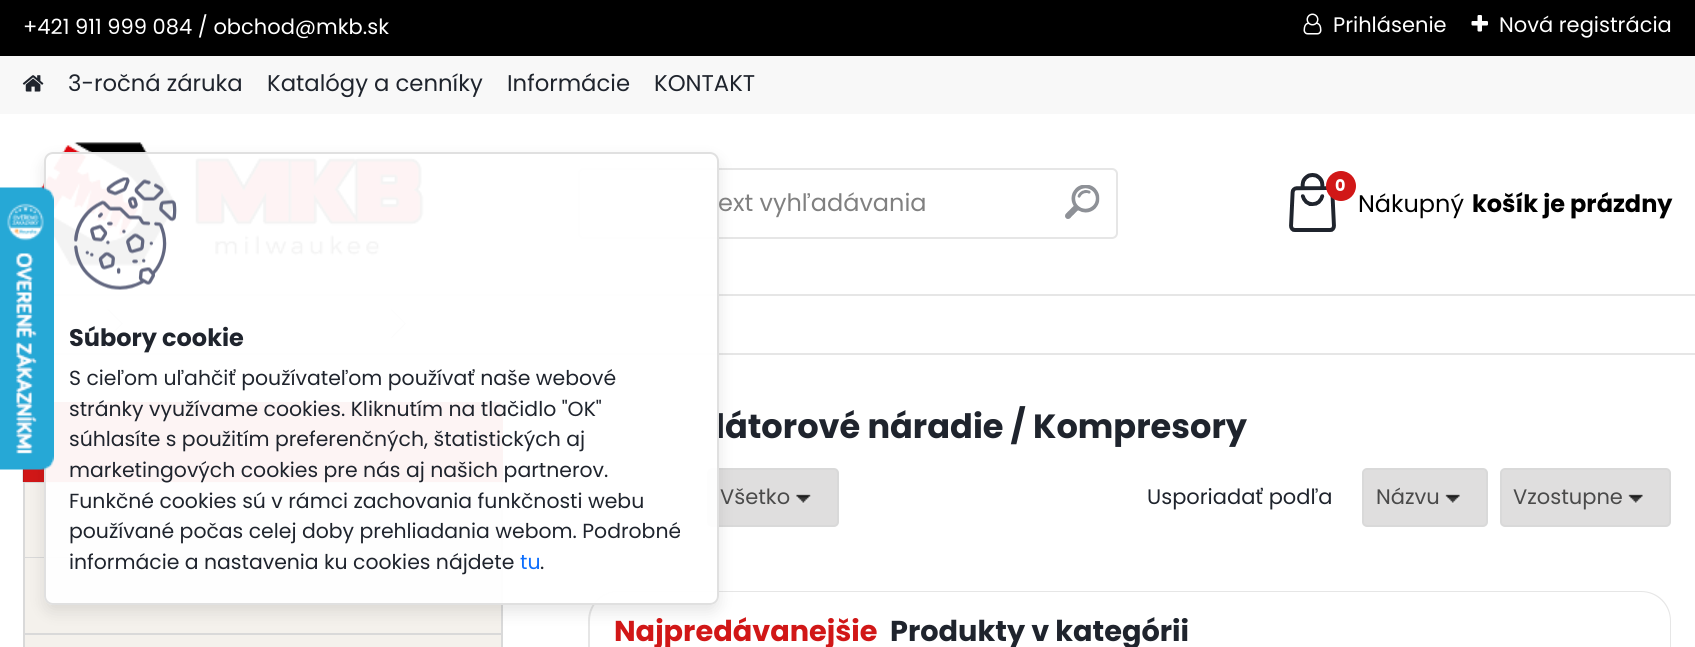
import math
import cairo



def rounded_rect(context, x, y, w, h, r):
    context.new_sub_path()
    for i, (u, v) in enumerate([(x + w - r, y + h - r), (x + r, y + h - r), (x + r, y + r), (x + w - r, y + r)]):
        context.arc(u, v, r, i * math.pi / 2, (i + 1) * math.pi / 2)
    context.close_path()


def draw_shadow(context, x, y, w, h, r, blur, alpha):
    context.push_group_with_content(cairo.Content.ALPHA)
    context.set_operator(cairo.Operator.SOURCE)
    for i in range(15, -16, -2):
        e = blur * i / 6
        if min(w, h) + 2 * e > 0:
            context.set_source_rgba(0, 0, 0, alpha * math.erfc((i - 1) / 8.5) / 2)
            rounded_rect(context, x - e, y - e, w + 2 * e, h + 2 * e, max(0, min(r + e + blur * .6, min(w, h) / 2 + e)))
            context.fill()
    context.mask(context.pop_group())


def draw_image(context, path, x, y, w, h):
    context.save()
    context.set_source_surface(cairo.ImageSurface.create_from_png(path), x, y)
    context.rectangle(x, y, w, h)
    context.fill()
    context.restore()


def draw(context):
    context.set_source_rgb(1, 1, 1)
    context.paint()
    context.set_source_rgb(0, 0, 0)
    context.rectangle(0, 0, 1695, 56)
    context.fill()
    draw_image(context, "images/1.png", 1303, 13, 19, 22)
    draw_image(context, "images/2.png", 1471, 15, 17, 17)
    context.set_source_rgb(230 / 255, 230 / 255, 230 / 255)
    context.rectangle(54, 294, 1641, 2)
    context.fill()
    context.set_source_rgb(248 / 255, 248 / 255, 248 / 255)
    context.rectangle(0, 56, 1695, 58)
    context.fill()
    draw_image(context, "images/3.png", 22, 75, 22, 17)
    draw_image(context, "images/4.png", 34, 142, 390, 124)
    rounded_rect(context, 579, 169, 538, 69, 5)
    context.set_source_rgb(230 / 255, 230 / 255, 230 / 255)
    context.stroke()
    draw_image(context, "images/5.png", 1065, 185, 35, 34)
    draw_image(context, "images/6.png", 1289, 173, 47, 59)
    context.set_source_rgb(209 / 255, 23 / 255, 23 / 255)
    context.arc(1341, 186, 15, 0, 2 * math.pi)
    context.fill()
    context.set_source_rgb(230 / 255, 230 / 255, 230 / 255)
    context.rectangle(54, 353, 1641, 2)
    context.fill()
    context.set_source_rgb(195 / 255, 195 / 255, 195 / 255)
    context.new_path()
    context.move_to(107, 309.5)
    context.line_to(108.5, 309.5)
    context.line_to(123, 323.5)
    context.line_to(121.5, 323.5)
    context.close_path()
    context.fill()
    context.new_path()
    context.move_to(121.5, 323.5)
    context.line_to(123, 323.5)
    context.line_to(108.5, 338)
    context.line_to(107, 338)
    context.close_path()
    context.fill()
    context.new_path()
    context.move_to(390.5, 309.5)
    context.line_to(392, 309.5)
    context.line_to(406, 323.5)
    context.line_to(404.5, 323.5)
    context.close_path()
    context.fill()
    context.new_path()
    context.move_to(404.5, 323.5)
    context.line_to(406, 323.5)
    context.line_to(392, 338)
    context.line_to(390.5, 338)
    context.close_path()
    context.fill()
    context.set_source_rgb(217 / 255, 217 / 255, 217 / 255)
    context.rectangle(501, 482, 2, 165)
    context.fill()
    context.rectangle(23, 557, 480, 1)
    context.fill()
    context.rectangle(23, 482, 2, 76)
    context.fill()
    context.new_path()
    context.move_to(23, 482)
    context.line_to(23, 483)
    context.line_to(503, 483)
    context.line_to(503, 409)
    context.line_to(502, 407)
    context.line_to(502, 482)
    context.close_path()
    context.fill()
    context.set_source_rgb(209 / 255, 23 / 255, 23 / 255)
    context.new_path()
    context.move_to(28, 402)
    context.line_to(498, 402)
    context.curve_to(501, 402, 503, 404, 503, 407)
    context.line_to(503, 482)
    context.line_to(23, 482)
    context.line_to(23, 407)
    context.curve_to(23, 404, 25, 402, 28, 402)
    context.close_path()
    context.fill()
    context.set_source_rgba(0, 0, 0, 0.1)
    context.set_fill_rule(cairo.FillRule.EVEN_ODD)
    context.new_path()
    context.move_to(27, 402)
    context.line_to(498, 402)
    context.curve_to(500, 402, 502, 404, 502, 406)
    context.line_to(502, 482)
    context.line_to(22, 482)
    context.line_to(22, 406)
    context.curve_to(22, 404, 25, 402, 27, 402)
    context.close_path()
    context.move_to(27, 404)
    context.line_to(498, 404)
    context.curve_to(500, 404, 501, 405, 501, 406)
    context.line_to(501, 482)
    context.line_to(24, 482)
    context.line_to(24, 406)
    context.curve_to(24, 405, 25, 404, 27, 404)
    context.close_path()
    context.fill()
    context.set_source_rgb(244 / 255, 241 / 255, 236 / 255)
    context.rectangle(25, 483, 476, 74)
    context.fill()
    context.rectangle(25, 558, 476, 75)
    context.fill()
    context.set_source_rgb(217 / 255, 217 / 255, 217 / 255)
    context.rectangle(23, 633, 480, 2)
    context.fill()
    context.rectangle(23, 558, 2, 89)
    context.fill()
    context.set_source_rgb(244 / 255, 241 / 255, 236 / 255)
    context.rectangle(25, 635, 476, 12)
    context.fill()
    context.set_source_rgb(223 / 255, 222 / 255, 222 / 255)
    rounded_rect(context, 708, 469, 130, 57, 4)
    context.fill_preserve()
    context.set_source_rgb(217 / 255, 217 / 255, 217 / 255)
    context.stroke()
    draw_image(context, "images/7.png", 796, 494, 15, 10)
    context.set_source_rgb(223 / 255, 222 / 255, 222 / 255)
    rounded_rect(context, 1363, 469, 124, 57, 4)
    context.fill_preserve()
    context.set_source_rgb(217 / 255, 217 / 255, 217 / 255)
    context.stroke()
    draw_image(context, "images/8.png", 1445, 494, 15, 10)
    context.set_source_rgb(223 / 255, 222 / 255, 222 / 255)
    rounded_rect(context, 1501, 469, 169, 57, 4)
    context.fill_preserve()
    context.set_source_rgb(217 / 255, 217 / 255, 217 / 255)
    context.stroke()
    draw_image(context, "images/8.png", 1628, 494, 15, 10)
    context.set_source_rgb(230 / 255, 230 / 255, 230 / 255)
    context.new_path()
    context.move_to(618, 591)
    context.line_to(1641, 591)
    context.curve_to(1658, 591, 1671, 604, 1671, 621)
    context.line_to(1671, 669)
    context.line_to(588, 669)
    context.line_to(588, 621)
    context.curve_to(588, 604, 601, 591, 618, 591)
    context.close_path()
    context.move_to(618, 592)
    context.line_to(1641, 592)
    context.curve_to(1657, 592, 1670, 605, 1670, 621)
    context.line_to(1670, 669)
    context.line_to(590, 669)
    context.line_to(590, 621)
    context.curve_to(590, 605, 602, 592, 618, 592)
    context.close_path()
    context.fill()
    context.save()
    context.new_path()
    context.move_to(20, 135)
    context.line_to(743, 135)
    context.line_to(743, 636)
    context.line_to(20, 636)
    context.close_path()
    context.move_to(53, 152)
    context.line_to(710, 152)
    context.curve_to(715, 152, 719, 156, 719, 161)
    context.line_to(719, 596)
    context.curve_to(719, 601, 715, 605, 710, 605)
    context.line_to(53, 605)
    context.curve_to(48, 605, 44, 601, 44, 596)
    context.line_to(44, 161)
    context.curve_to(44, 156, 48, 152, 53, 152)
    context.close_path()
    context.clip()
    context.set_source_rgb(0, 0, 0)
    draw_shadow(context, 44, 159, 675, 453, 9, 7.5, 0.1)
    context.restore()
    context.select_font_face("Poppins")
    context.set_font_size(21)
    context.set_source_rgb(1, 1, 1)
    context.move_to(23, 34)
    context.show_text("+421 911 999 084 / obchod@mkb.sk")
    context.move_to(1333, 32)
    context.show_text("Prihlásenie")
    context.move_to(1499, 32)
    context.show_text("Nová registrácia")
    context.set_font_size(22.75)
    context.set_source_rgb(31 / 255, 36 / 255, 45 / 255)
    context.move_to(68, 91)
    context.show_text("3-ročná záruka")
    context.move_to(267, 91)
    context.show_text("Katalógy a cenníky")
    context.move_to(507, 91)
    context.show_text("Informácie")
    context.move_to(654, 91)
    context.show_text("KONTAKT")
    context.set_font_size(24)
    context.set_source_rgb(128 / 255, 128 / 255, 128 / 255)
    context.move_to(718, 211)
    context.show_text("ext vyhľadávania")
    context.select_font_face("Poppins", cairo.FontSlant.NORMAL, cairo.FontWeight.BOLD)
    context.set_font_size(16)
    context.set_source_rgb(1, 1, 1)
    context.move_to(1335, 191)
    context.show_text("0")
    context.select_font_face("Poppins")
    context.set_font_size(24)
    context.set_source_rgb(0, 0, 0)
    context.move_to(1358, 212)
    context.show_text("Nákupný")
    context.select_font_face("Poppins", cairo.FontSlant.NORMAL, cairo.FontWeight.BOLD)
    context.move_to(1472, 212)
    context.show_text("košík je prázdny")
    context.set_font_size(33.6)
    context.set_source_rgb(31 / 255, 36 / 255, 45 / 255)
    context.move_to(715, 438)
    context.show_text("látorové náradie / Kompresory")
    context.select_font_face("Poppins")
    context.set_font_size(21)
    context.set_source_rgb(74 / 255, 74 / 255, 74 / 255)
    context.move_to(720, 504)
    context.show_text("Všetko")
    context.set_source_rgb(31 / 255, 36 / 255, 45 / 255)
    context.move_to(1147, 504)
    context.show_text("Usporiadať podľa")
    context.set_source_rgb(74 / 255, 74 / 255, 74 / 255)
    context.move_to(1376, 504)
    context.show_text("Názvu")
    context.move_to(1513, 504)
    context.show_text("Vzostupne")
    context.select_font_face("Poppins", cairo.FontSlant.NORMAL, cairo.FontWeight.BOLD)
    context.set_font_size(28.75)
    context.set_source_rgb(209 / 255, 23 / 255, 23 / 255)
    context.move_to(614, 641)
    context.show_text("Najpredávanejšie")
    context.set_source_rgb(31 / 255, 36 / 255, 45 / 255)
    context.move_to(890, 641)
    context.show_text("Produkty v kategórii")
    context.set_source_rgba(1, 1, 1, 0.95)
    rounded_rect(context, 45, 153, 673, 451, 8)
    context.fill_preserve()
    context.set_source_rgb(224 / 255, 224 / 255, 224 / 255)
    context.stroke()
    draw_image(context, "images/9.png", 0, 187, 54, 283)
    draw_image(context, "images/10.png", 74, 177, 103, 113)
    context.set_font_size(24)
    context.set_source_rgb(31 / 255, 36 / 255, 45 / 255)
    context.move_to(69, 346)
    context.show_text("Súbory cookie")
    context.select_font_face("Poppins")
    context.set_font_size(20.4)
    context.move_to(69, 385)
    context.show_text("S cieľom uľahčiť používateľom používať naše webové")
    context.move_to(69, 416)
    context.show_text("stránky využívame cookies. Kliknutím na tlačidlo \"OK\"")
    context.move_to(69, 446)
    context.show_text("súhlasíte s použitím preferenčných, štatistických aj")
    context.move_to(69, 477)
    context.show_text("marketingových cookies pre nás aj našich partnerov.")
    context.move_to(69, 508)
    context.show_text("Funkčné cookies sú v rámci zachovania funkčnosti webu")
    context.move_to(69, 538)
    context.show_text("používané počas celej doby prehliadania webom. Podrobné")
    context.move_to(69, 569)
    context.show_text("informácie a nastavenia ku cookies nájdete")
    context.set_source_rgb(13 / 255, 110 / 255, 253 / 255)
    context.move_to(520, 569)
    context.show_text("tu")
    context.set_source_rgb(31 / 255, 36 / 255, 45 / 255)
    context.move_to(540, 569)
    context.show_text(".")


surface = cairo.ImageSurface(cairo.Format.RGB24, 1695, 647)
context = cairo.Context(surface)
options = cairo.FontOptions()
options.set_hint_metrics(cairo.HintMetrics.OFF)
options.set_hint_style(cairo.HintStyle.NONE)
context.set_font_options(options)
context.set_miter_limit(4)
draw(context)
surface.write_to_png("out.png")
